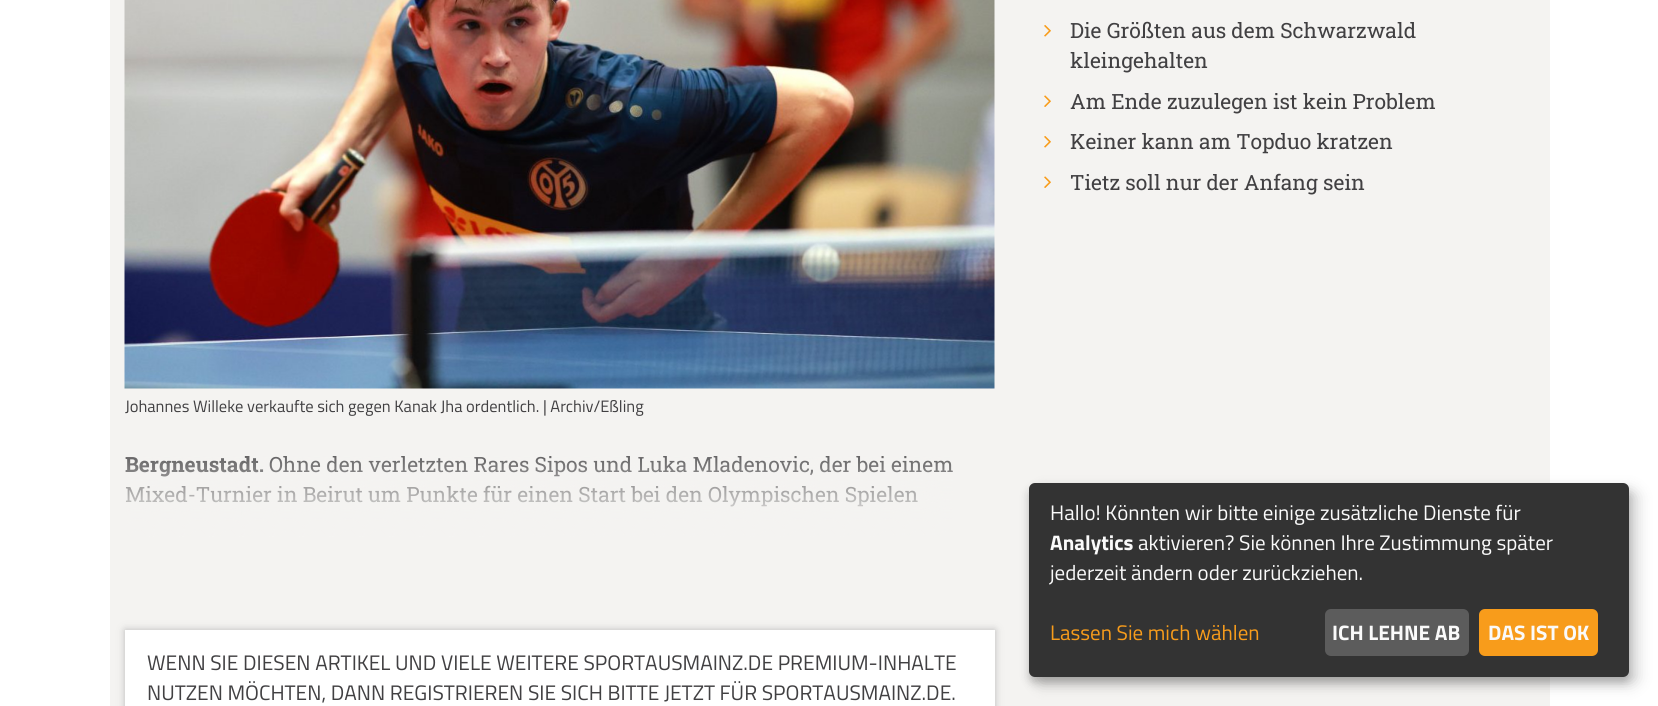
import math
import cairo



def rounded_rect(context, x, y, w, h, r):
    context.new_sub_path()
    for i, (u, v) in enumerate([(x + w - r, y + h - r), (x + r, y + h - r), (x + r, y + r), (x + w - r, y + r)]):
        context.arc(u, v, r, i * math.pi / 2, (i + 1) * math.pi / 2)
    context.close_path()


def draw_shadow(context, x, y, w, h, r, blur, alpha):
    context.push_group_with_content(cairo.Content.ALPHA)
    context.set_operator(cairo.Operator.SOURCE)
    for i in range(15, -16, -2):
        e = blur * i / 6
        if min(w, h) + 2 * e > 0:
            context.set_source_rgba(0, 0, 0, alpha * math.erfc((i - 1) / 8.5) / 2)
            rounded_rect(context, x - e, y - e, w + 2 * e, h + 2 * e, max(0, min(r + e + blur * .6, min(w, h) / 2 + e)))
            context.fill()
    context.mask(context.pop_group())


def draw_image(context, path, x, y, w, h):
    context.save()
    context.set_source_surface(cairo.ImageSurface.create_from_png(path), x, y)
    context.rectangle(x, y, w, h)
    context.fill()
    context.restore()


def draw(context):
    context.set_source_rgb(1, 1, 1)
    context.paint()
    context.set_source_rgb(244 / 255, 243 / 255, 241 / 255)
    context.rectangle(110, 0, 1440, 706)
    context.fill()
    draw_image(context, "images/1.png", 1044, 25, 7, 12)
    draw_image(context, "images/2.png", 1044, 95, 7, 12)
    draw_image(context, "images/1.png", 1044, 136, 7, 12)
    draw_image(context, "images/2.png", 1044, 176, 7, 12)
    draw_image(context, "images/3.png", 124, 0, 871, 389)
    context.set_source_rgb(187 / 255, 187 / 255, 187 / 255)
    draw_shadow(context, 125, 630, 870, 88, 0, 4, 1)
    context.set_source_rgb(1, 1, 1)
    context.rectangle(125, 630, 870, 76)
    context.fill()
    context.set_source_rgb(0, 0, 0)
    draw_shadow(context, 1037, 491, 600, 193, 6, 7.5, 0.19)
    draw_shadow(context, 1029, 489, 600, 194, 6, 4.5, 0.2)
    context.set_source_rgb(51 / 255, 51 / 255, 51 / 255)
    rounded_rect(context, 1029, 483, 600, 194, 6)
    context.fill()
    context.set_source_rgb(92 / 255, 92 / 255, 92 / 255)
    rounded_rect(context, 1325, 609, 144, 47, 6)
    context.fill()
    context.set_source_rgb(248 / 255, 156 / 255, 27 / 255)
    rounded_rect(context, 1479, 609, 119, 47, 6)
    context.fill()
    context.select_font_face("Roboto Slab")
    context.set_font_size(21)
    context.set_source_rgb(65 / 255, 64 / 255, 66 / 255)
    context.move_to(1070, 38)
    context.show_text("Die Größten aus dem Schwarzwald")
    context.move_to(1070, 68)
    context.show_text("kleingehalten")
    context.move_to(1070, 109)
    context.show_text("Am Ende zuzulegen ist kein Problem")
    context.move_to(1070, 149)
    context.show_text("Keiner kann am Topduo kratzen")
    context.move_to(1070, 190)
    context.show_text("Tietz soll nur der Anfang sein")
    context.select_font_face("Titillium Web")
    context.set_font_size(16.5)
    context.move_to(125, 412)
    context.show_text("Johannes Willeke verkaufte sich gegen Kanak Jha ordentlich. | Archiv/Eßling")
    context.select_font_face("Roboto Slab", cairo.FontSlant.NORMAL, cairo.FontWeight.BOLD)
    context.set_font_size(21)
    context.move_to(125, 472)
    context.show_text("Bergneustadt.")
    context.select_font_face("Roboto Slab")
    context.move_to(269, 472)
    context.show_text("Ohne den verletzten Rares Sipos und Luka Mladenovic, der bei einem")
    context.move_to(125, 502)
    context.show_text("Mixed-Turnier in Beirut um Punkte für einen Start bei den Olympischen Spielen")
    draw_image(context, "images/4.png", 125, 456, 828, 81)
    context.select_font_face("Titillium Web")
    context.move_to(147, 670)
    context.show_text("WENN SIE DIESEN ARTIKEL UND VIELE WEITERE SPORTAUSMAINZ.DE PREMIUM-INHALTE")
    context.move_to(147, 700)
    context.show_text("NUTZEN MÖCHTEN, DANN REGISTRIEREN SIE SICH BITTE JETZT FÜR SPORTAUSMAINZ.DE.")
    context.set_source_rgb(250 / 255, 250 / 255, 250 / 255)
    context.move_to(1050, 520)
    context.show_text("Hallo! Könnten wir bitte einige zusätzliche Dienste für")
    context.select_font_face("Titillium Web", cairo.FontSlant.NORMAL, cairo.FontWeight.BOLD)
    context.move_to(1050, 550)
    context.show_text("Analytics")
    context.select_font_face("Titillium Web")
    context.move_to(1138, 550)
    context.show_text("aktivieren? Sie können Ihre Zustimmung später")
    context.move_to(1050, 580)
    context.show_text("jederzeit ändern oder zurückziehen.")
    context.set_source_rgb(248 / 255, 156 / 255, 27 / 255)
    context.move_to(1050, 640)
    context.show_text("Lassen Sie mich wählen")
    context.select_font_face("Titillium Web", cairo.FontSlant.NORMAL, cairo.FontWeight.BOLD)
    context.set_source_rgb(250 / 255, 250 / 255, 250 / 255)
    context.move_to(1332, 640)
    context.show_text("ICH LEHNE AB")
    context.move_to(1488, 640)
    context.show_text("DAS IST OK")


surface = cairo.ImageSurface(cairo.Format.RGB24, 1658, 706)
context = cairo.Context(surface)
options = cairo.FontOptions()
options.set_hint_metrics(cairo.HintMetrics.OFF)
options.set_hint_style(cairo.HintStyle.NONE)
context.set_font_options(options)
context.set_miter_limit(4)
draw(context)
surface.write_to_png("out.png")
